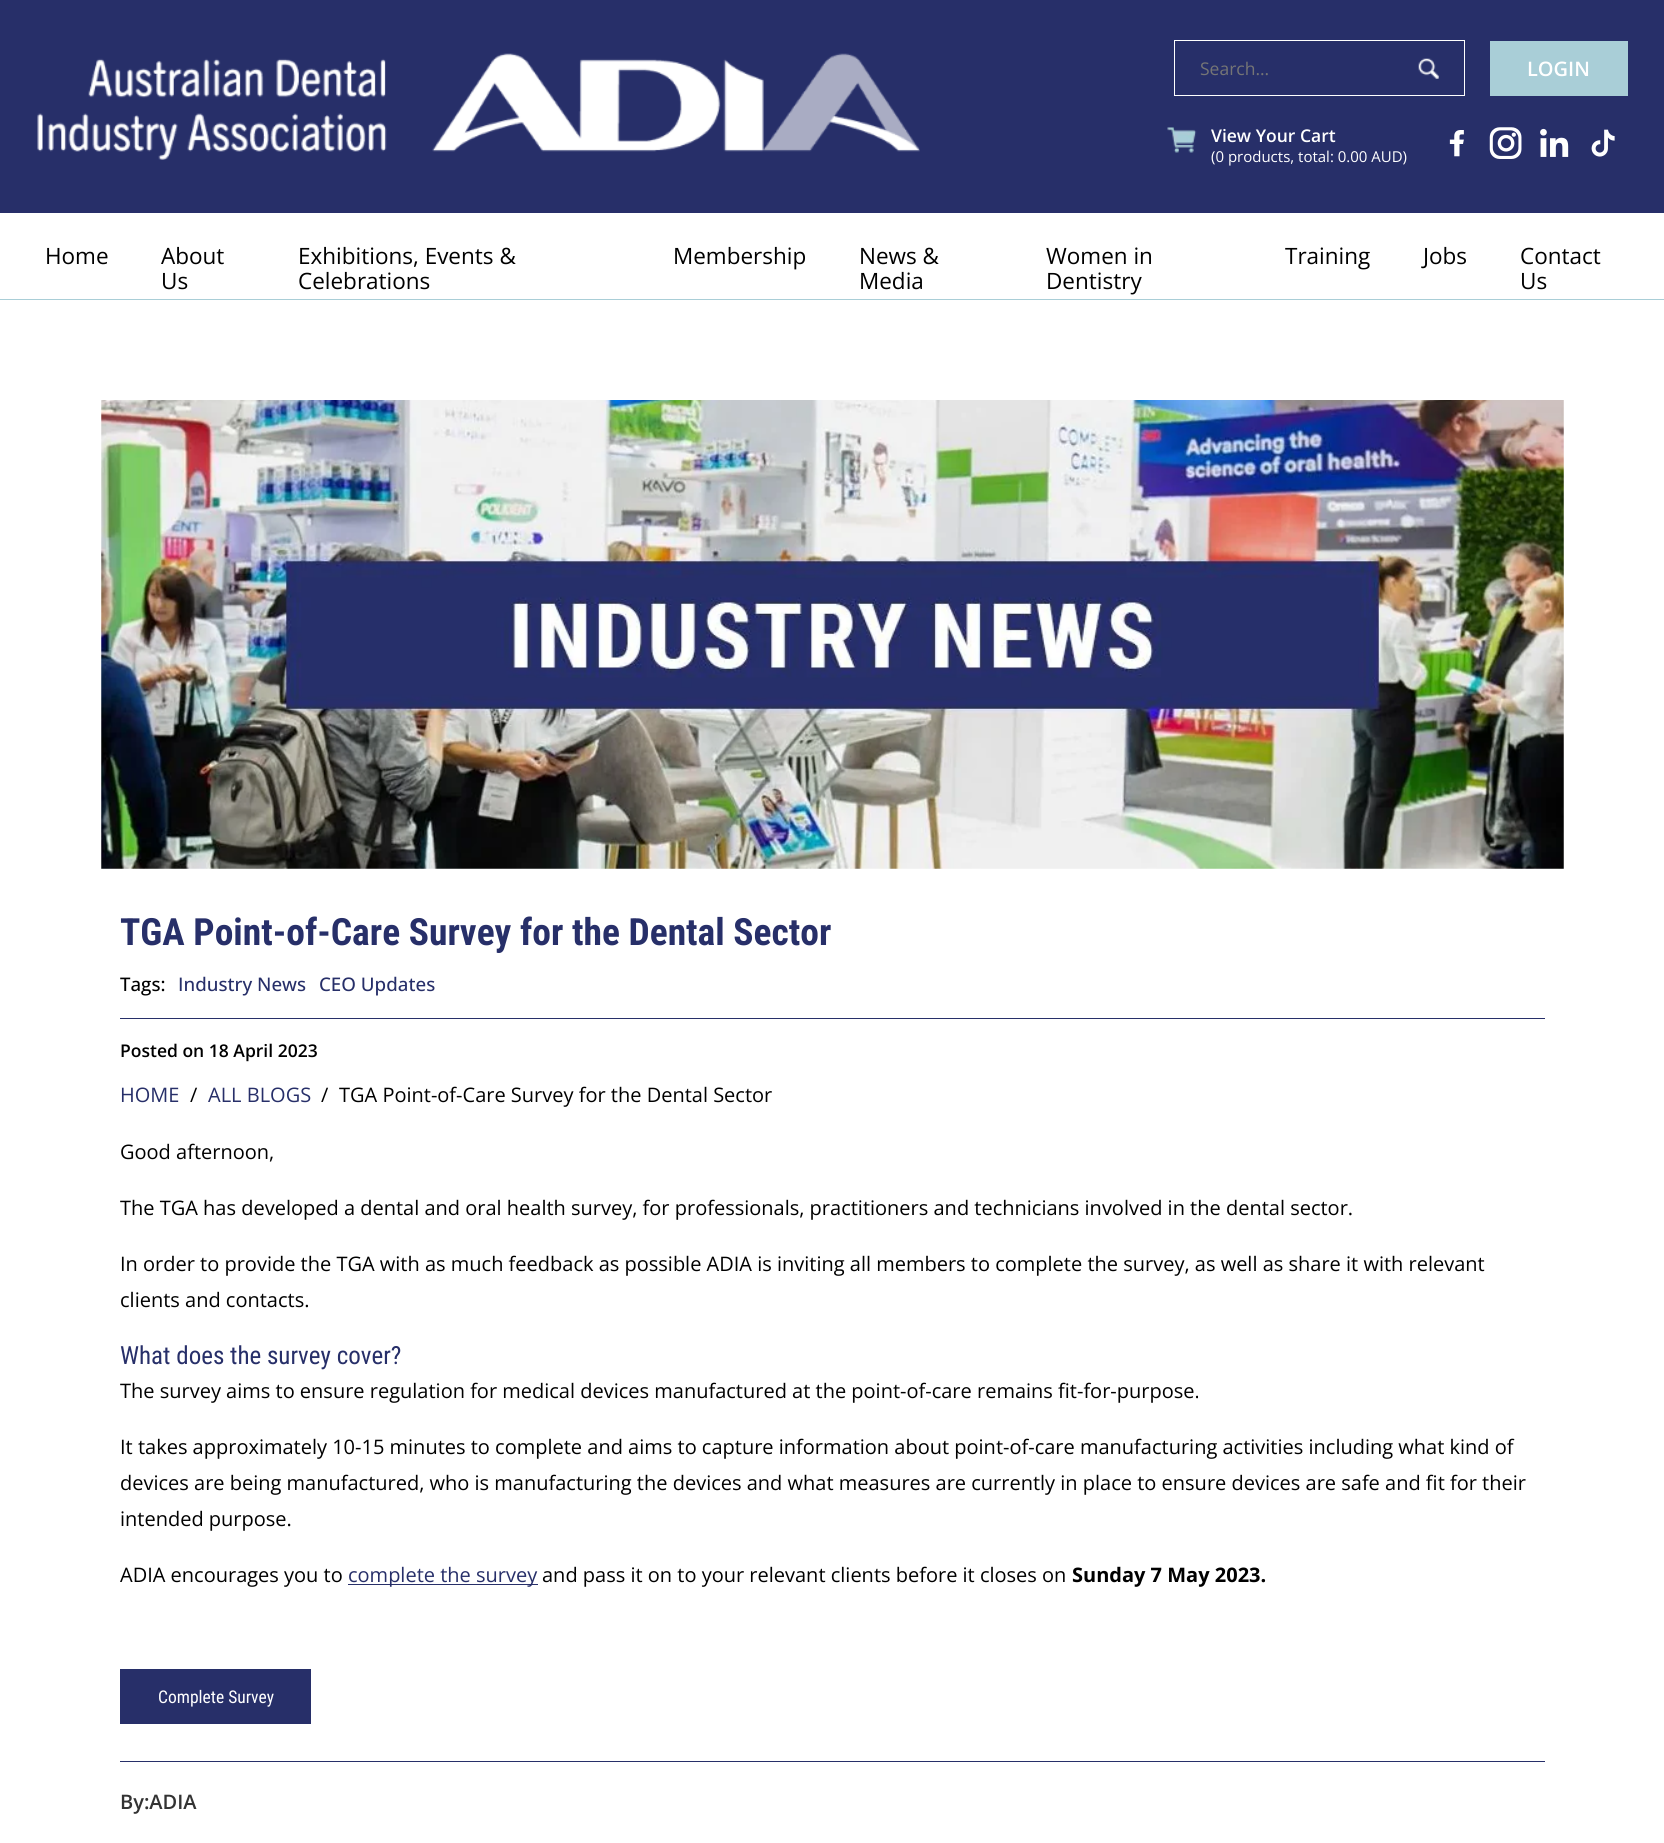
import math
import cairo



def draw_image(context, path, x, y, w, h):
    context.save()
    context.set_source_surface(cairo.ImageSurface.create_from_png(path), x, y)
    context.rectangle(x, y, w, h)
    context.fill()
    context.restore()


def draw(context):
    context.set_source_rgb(1, 1, 1)
    context.paint()
    context.set_source_rgb(39 / 255, 47 / 255, 105 / 255)
    context.rectangle(0, 0, 1664, 213)
    context.fill()
    draw_image(context, "images/1.png", 37, 53, 883, 107)
    context.rectangle(1174.5, 40.5, 290, 55)
    context.set_source_rgb(1, 1, 1)
    context.set_line_width(1)
    context.stroke()
    draw_image(context, "images/2.png", 1418, 58, 21, 21)
    context.set_source_rgb(169 / 255, 206 / 255, 215 / 255)
    context.rectangle(1490, 41, 138, 55)
    context.fill()
    draw_image(context, "images/3.png", 1167, 127, 30, 26)
    draw_image(context, "images/4.png", 1449, 130, 15, 27)
    draw_image(context, "images/5.png", 1489, 127, 33, 32)
    draw_image(context, "images/6.png", 1540, 128, 29, 29)
    draw_image(context, "images/7.png", 1591, 129, 24, 28)
    context.rectangle(0, 299, 1664, 1)
    context.fill()
    draw_image(context, "images/8.png", 101, 400, 1463, 469)
    context.set_source_rgb(39 / 255, 47 / 255, 105 / 255)
    context.rectangle(120, 1018, 1425, 1)
    context.fill()
    context.rectangle(120, 1761, 1425, 1)
    context.fill()
    context.rectangle(348, 1584, 190, 1)
    context.fill()
    context.rectangle(120, 1669, 191, 55)
    context.fill()
    context.select_font_face("Open Sans")
    context.set_font_size(17.5)
    context.set_source_rgb(117 / 255, 117 / 255, 117 / 255)
    context.move_to(1200, 75)
    context.show_text("Search...")
    context.select_font_face("Open Sans SemiBold")
    context.set_font_size(20)
    context.set_source_rgb(1, 1, 1)
    context.move_to(1527, 76)
    context.show_text("LOGIN")
    context.set_font_size(17.5)
    context.move_to(1211, 142)
    context.show_text("View Your Cart")
    context.select_font_face("Open Sans")
    context.set_font_size(15)
    context.move_to(1211, 162)
    context.show_text("(0 products, total: 0.00 AUD)")
    context.set_font_size(22.5)
    context.set_source_rgb(0, 0, 0)
    context.move_to(45, 264)
    context.show_text("Home")
    context.move_to(161, 264)
    context.show_text("About")
    context.move_to(161, 289)
    context.show_text("Us")
    context.move_to(298, 264)
    context.show_text("Exhibitions, Events &")
    context.move_to(298, 289)
    context.show_text("Celebrations")
    context.move_to(673, 264)
    context.show_text("Membership")
    context.move_to(859, 264)
    context.show_text("News &")
    context.move_to(859, 289)
    context.show_text("Media")
    context.move_to(1046, 264)
    context.show_text("Women in")
    context.move_to(1046, 289)
    context.show_text("Dentistry")
    context.move_to(1285, 264)
    context.show_text("Training")
    context.move_to(1423, 264)
    context.show_text("Jobs")
    context.move_to(1520, 264)
    context.show_text("Contact")
    context.move_to(1520, 289)
    context.show_text("Us")
    context.select_font_face("Roboto Condensed", cairo.FontSlant.NORMAL, cairo.FontWeight.BOLD)
    context.set_font_size(37.5)
    context.set_source_rgb(39 / 255, 47 / 255, 105 / 255)
    context.move_to(120, 945)
    context.show_text("TGA Point-of-Care Survey for the Dental Sector")
    context.select_font_face("Open Sans Medium")
    context.set_font_size(18.75)
    context.set_source_rgb(0, 0, 0)
    context.move_to(120, 991)
    context.show_text("Tags:")
    context.set_source_rgb(39 / 255, 47 / 255, 105 / 255)
    context.move_to(178, 991)
    context.show_text("Industry News")
    context.move_to(319, 991)
    context.show_text("CEO Updates")
    context.select_font_face("Open Sans SemiBold")
    context.set_font_size(17.5)
    context.set_source_rgb(0, 0, 0)
    context.move_to(120, 1057)
    context.show_text("Posted on 18 April 2023")
    context.select_font_face("Open Sans")
    context.set_font_size(20)
    context.set_source_rgb(39 / 255, 47 / 255, 105 / 255)
    context.move_to(120, 1102)
    context.show_text("HOME")
    context.set_source_rgb(0, 0, 0)
    context.move_to(190, 1102)
    context.show_text("/")
    context.set_source_rgb(39 / 255, 47 / 255, 105 / 255)
    context.move_to(208, 1102)
    context.show_text("ALL BLOGS")
    context.set_source_rgb(0, 0, 0)
    context.move_to(321, 1102)
    context.show_text("/")
    context.move_to(339, 1102)
    context.show_text("TGA Point-of-Care Survey for the Dental Sector")
    context.move_to(120, 1159)
    context.show_text("Good afternoon,")
    context.move_to(120, 1215)
    context.show_text("The TGA has developed a dental and oral health survey, for professionals, practitioners and technicians involved in the dental sector.")
    context.move_to(120, 1271)
    context.show_text("In order to provide the TGA with as much feedback as possible ADIA is inviting all members to complete the survey, as well as share it with relevant")
    context.move_to(120, 1307)
    context.show_text("clients and contacts.")
    context.select_font_face("Roboto Condensed")
    context.set_font_size(25)
    context.set_source_rgb(39 / 255, 47 / 255, 105 / 255)
    context.move_to(120, 1364)
    context.show_text("What does the survey cover?")
    context.select_font_face("Open Sans")
    context.set_font_size(20)
    context.set_source_rgb(0, 0, 0)
    context.move_to(120, 1398)
    context.show_text("The survey aims to ensure regulation for medical devices manufactured at the point-of-care remains fit-for-purpose.")
    context.move_to(120, 1454)
    context.show_text("It takes approximately 10-15 minutes to complete and aims to capture information about point-of-care manufacturing activities including what kind of")
    context.move_to(120, 1490)
    context.show_text("devices are being manufactured, who is manufacturing the devices and what measures are currently in place to ensure devices are safe and fit for their")
    context.move_to(120, 1526)
    context.show_text("intended purpose.")
    context.move_to(120, 1582)
    context.show_text("ADIA encourages you to")
    context.set_source_rgb(39 / 255, 47 / 255, 105 / 255)
    context.move_to(348, 1582)
    context.show_text("complete the survey")
    context.set_source_rgb(0, 0, 0)
    context.move_to(542, 1582)
    context.show_text("and pass it on to your relevant clients before it closes on")
    context.select_font_face("Open Sans", cairo.FontSlant.NORMAL, cairo.FontWeight.BOLD)
    context.move_to(1072, 1582)
    context.show_text("Sunday 7 May 2023.")
    context.select_font_face("Roboto Condensed")
    context.set_font_size(17.5)
    context.set_source_rgb(1, 1, 1)
    context.move_to(158, 1703)
    context.show_text("Complete Survey")
    context.select_font_face("Open Sans SemiBold")
    context.set_font_size(20)
    context.set_source_rgb(51 / 255, 51 / 255, 51 / 255)
    context.move_to(120, 1809)
    context.show_text("By:ADIA")


surface = cairo.ImageSurface(cairo.Format.RGB24, 1664, 1843)
context = cairo.Context(surface)
options = cairo.FontOptions()
options.set_hint_metrics(cairo.HintMetrics.OFF)
options.set_hint_style(cairo.HintStyle.NONE)
context.set_font_options(options)
context.set_miter_limit(4)
draw(context)
surface.write_to_png("out.png")
